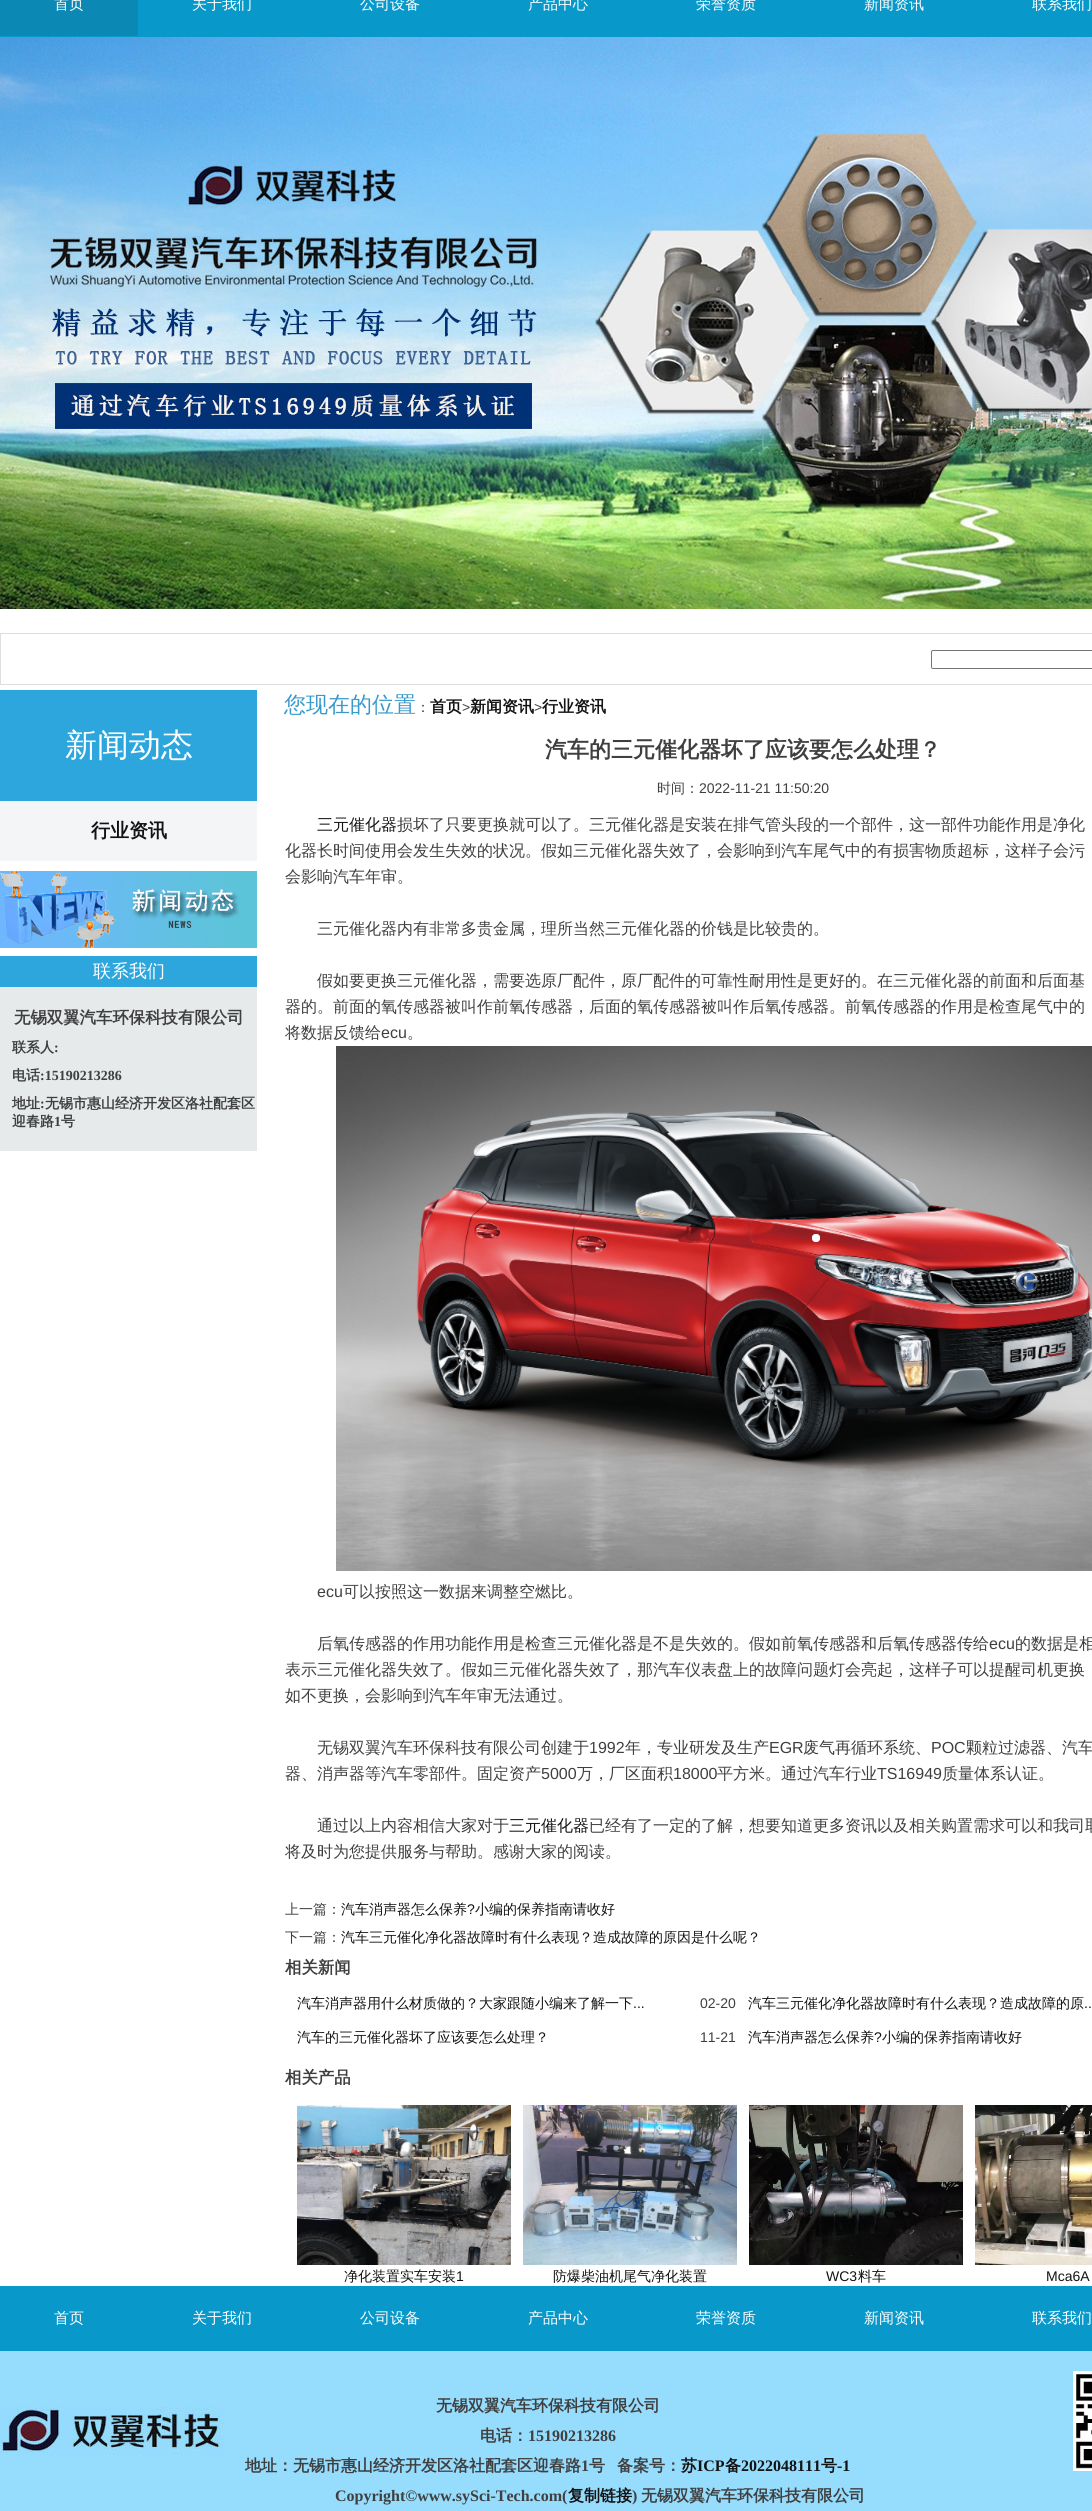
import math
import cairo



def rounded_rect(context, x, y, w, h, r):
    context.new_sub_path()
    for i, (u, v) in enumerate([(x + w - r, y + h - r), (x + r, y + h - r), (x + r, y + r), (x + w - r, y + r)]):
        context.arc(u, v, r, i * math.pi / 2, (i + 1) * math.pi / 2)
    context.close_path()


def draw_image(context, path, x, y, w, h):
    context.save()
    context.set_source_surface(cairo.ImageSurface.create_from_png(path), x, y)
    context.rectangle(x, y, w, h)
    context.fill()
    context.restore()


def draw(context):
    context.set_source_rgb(1, 1, 1)
    context.paint()
    context.set_source_rgb(8 / 255, 153 / 255, 202 / 255)
    context.rectangle(0, 0, 1092, 37)
    context.fill()
    context.set_source_rgb(11 / 255, 136 / 255, 179 / 255)
    context.rectangle(0, 0, 138, 36)
    context.fill()
    draw_image(context, "images/1.png", 0, 37, 1092, 572)
    context.rectangle(0.5, 633.5, 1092, 51)
    context.set_source_rgb(222 / 255, 222 / 255, 222 / 255)
    context.set_line_width(1)
    context.stroke()
    rounded_rect(context, 931.5, 650.5, 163, 18, 1.5)
    context.set_source_rgb(118 / 255, 118 / 255, 118 / 255)
    context.stroke()
    context.set_source_rgb(45 / 255, 165 / 255, 221 / 255)
    context.rectangle(0, 690, 257, 111)
    context.fill()
    context.set_source_rgb(243 / 255, 245 / 255, 246 / 255)
    context.rectangle(0, 801, 257, 60)
    context.fill()
    draw_image(context, "images/2.png", 0, 871, 257, 77)
    context.set_source_rgb(45 / 255, 165 / 255, 221 / 255)
    context.rectangle(0, 956, 257, 31)
    context.fill()
    context.set_source_rgb(230 / 255, 234 / 255, 235 / 255)
    context.rectangle(0, 987, 257, 164)
    context.fill()
    draw_image(context, "images/3.png", 336, 1046, 756, 525)
    draw_image(context, "images/4.png", 297, 2105, 214, 160)
    draw_image(context, "images/5.png", 523, 2105, 214, 160)
    draw_image(context, "images/6.png", 749, 2105, 214, 160)
    draw_image(context, "images/7.png", 975, 2105, 117, 160)
    context.set_source_rgb(8 / 255, 153 / 255, 202 / 255)
    context.rectangle(0, 2286, 1092, 65)
    context.fill()
    context.set_source_rgb(149 / 255, 220 / 255, 253 / 255)
    context.rectangle(0, 2351, 1092, 160)
    context.fill()
    draw_image(context, "images/8.png", 0, 2407, 224, 48)
    draw_image(context, "images/9.png", 1073, 2371, 19, 100)
    context.select_font_face("WenQuanYi Zen Hei Medium")
    context.set_font_size(15)
    context.set_source_rgb(1, 1, 1)
    context.move_to(54, 9)
    context.show_text("首页")
    context.move_to(192, 9)
    context.show_text("关于我们")
    context.move_to(360, 9)
    context.show_text("公司设备")
    context.move_to(528, 9)
    context.show_text("产品中心")
    context.move_to(696, 9)
    context.show_text("荣誉资质")
    context.move_to(864, 9)
    context.show_text("新闻资讯")
    context.move_to(1032, 9)
    context.show_text("联系我们")
    context.set_font_size(32)
    context.move_to(65, 756)
    context.show_text("新闻动态")
    context.select_font_face("WenQuanYi Zen Hei", cairo.FontSlant.NORMAL, cairo.FontWeight.BOLD)
    context.set_font_size(19)
    context.set_source_rgb(19 / 255, 19 / 255, 19 / 255)
    context.move_to(91, 837)
    context.show_text("行业资讯")
    context.select_font_face("WenQuanYi Zen Hei Medium")
    context.set_font_size(18)
    context.set_source_rgb(1, 1, 1)
    context.move_to(93, 977)
    context.show_text("联系我们")
    context.select_font_face("WenQuanYi Zen Hei", cairo.FontSlant.NORMAL, cairo.FontWeight.BOLD)
    context.set_font_size(16.4)
    context.set_source_rgb(63 / 255, 63 / 255, 63 / 255)
    context.move_to(14, 1023)
    context.show_text("无锡双翼汽车环保科技有限公司")
    context.set_font_size(14)
    context.move_to(12, 1052)
    context.show_text("联系人")
    context.select_font_face("Liberation Serif", cairo.FontSlant.NORMAL, cairo.FontWeight.BOLD)
    context.move_to(54, 1052)
    context.show_text(":")
    context.select_font_face("WenQuanYi Zen Hei", cairo.FontSlant.NORMAL, cairo.FontWeight.BOLD)
    context.move_to(12, 1080)
    context.show_text("电话")
    context.select_font_face("Liberation Serif", cairo.FontSlant.NORMAL, cairo.FontWeight.BOLD)
    context.move_to(40, 1080)
    context.show_text(":15190213286")
    context.select_font_face("WenQuanYi Zen Hei", cairo.FontSlant.NORMAL, cairo.FontWeight.BOLD)
    context.move_to(12, 1108)
    context.show_text("地址")
    context.select_font_face("Liberation Serif", cairo.FontSlant.NORMAL, cairo.FontWeight.BOLD)
    context.move_to(40, 1108)
    context.show_text(":")
    context.select_font_face("WenQuanYi Zen Hei", cairo.FontSlant.NORMAL, cairo.FontWeight.BOLD)
    context.move_to(45, 1108)
    context.show_text("无锡市惠山经济开发区洛社配套区")
    context.move_to(12, 1126)
    context.show_text("迎春路")
    context.select_font_face("Liberation Serif", cairo.FontSlant.NORMAL, cairo.FontWeight.BOLD)
    context.move_to(54, 1126)
    context.show_text("1")
    context.select_font_face("WenQuanYi Zen Hei", cairo.FontSlant.NORMAL, cairo.FontWeight.BOLD)
    context.move_to(61, 1126)
    context.show_text("号")
    context.select_font_face("WenQuanYi Zen Hei Medium")
    context.set_font_size(22)
    context.set_source_rgb(55 / 255, 153 / 255, 204 / 255)
    context.move_to(284, 712)
    context.show_text("您现在的位置")
    context.set_font_size(14)
    context.set_source_rgb(63 / 255, 63 / 255, 63 / 255)
    context.move_to(416, 712)
    context.show_text("：")
    context.select_font_face("WenQuanYi Zen Hei", cairo.FontSlant.NORMAL, cairo.FontWeight.BOLD)
    context.set_font_size(16)
    context.set_source_rgb(19 / 255, 19 / 255, 19 / 255)
    context.move_to(430, 712)
    context.show_text("首页")
    context.select_font_face("Liberation Sans")
    context.set_font_size(14)
    context.set_source_rgb(63 / 255, 63 / 255, 63 / 255)
    context.move_to(462, 712)
    context.show_text(">")
    context.select_font_face("WenQuanYi Zen Hei", cairo.FontSlant.NORMAL, cairo.FontWeight.BOLD)
    context.set_font_size(16)
    context.set_source_rgb(19 / 255, 19 / 255, 19 / 255)
    context.move_to(470, 712)
    context.show_text("新闻资讯")
    context.select_font_face("Liberation Sans")
    context.set_font_size(14)
    context.set_source_rgb(63 / 255, 63 / 255, 63 / 255)
    context.move_to(534, 712)
    context.show_text(">")
    context.select_font_face("WenQuanYi Zen Hei", cairo.FontSlant.NORMAL, cairo.FontWeight.BOLD)
    context.set_font_size(16)
    context.set_source_rgb(19 / 255, 19 / 255, 19 / 255)
    context.move_to(542, 712)
    context.show_text("行业资讯")
    context.set_font_size(22)
    context.set_source_rgb(63 / 255, 63 / 255, 63 / 255)
    context.move_to(545, 757)
    context.show_text("汽车的三元催化器坏了应该要怎么处理？")
    context.select_font_face("WenQuanYi Zen Hei Medium")
    context.set_font_size(14)
    context.move_to(657, 793)
    context.show_text("时间：")
    context.select_font_face("Liberation Sans")
    context.move_to(699, 793)
    context.show_text("2022-11-21 11:50:20")
    context.select_font_face("WenQuanYi Zen Hei Medium")
    context.set_font_size(16)
    context.set_source_rgb(19 / 255, 19 / 255, 19 / 255)
    context.move_to(317, 830)
    context.show_text("三元催化器")
    context.set_source_rgb(63 / 255, 63 / 255, 63 / 255)
    context.move_to(397, 830)
    context.show_text("损坏了只要更换就可以了。三元催化器是安装在排气管头段的一个部件，这一部件功能作用是净化")
    context.move_to(285, 856)
    context.show_text("化器长时间使用会发生失效的状况。假如三元催化器失效了，会影响到汽车尾气中的有损害物质超标，这样子会污")
    context.move_to(285, 882)
    context.show_text("会影响汽车年审。")
    context.move_to(317, 934)
    context.show_text("三元催化器内有非常多贵金属，理所当然三元催化器的价钱是比较贵的。")
    context.move_to(317, 986)
    context.show_text("假如要更换三元催化器，需要选原厂配件，原厂配件的可靠性耐用性是更好的。在三元催化器的前面和后面基")
    context.move_to(285, 1012)
    context.show_text("器的。前面的氧传感器被叫作前氧传感器，后面的氧传感器被叫作后氧传感器。前氧传感器的作用是检查尾气中的")
    context.move_to(285, 1038)
    context.show_text("将数据反馈给")
    context.select_font_face("Liberation Sans")
    context.move_to(381, 1038)
    context.show_text("ecu")
    context.select_font_face("WenQuanYi Zen Hei Medium")
    context.move_to(407, 1038)
    context.show_text("。")
    context.select_font_face("Liberation Sans")
    context.move_to(317, 1597)
    context.show_text("ecu")
    context.select_font_face("WenQuanYi Zen Hei Medium")
    context.move_to(343, 1597)
    context.show_text("可以按照这一数据来调整空燃比。")
    context.move_to(317, 1649)
    context.show_text("后氧传感器的作用功能作用是检查三元催化器是不是失效的。假如前氧传感器和后氧传感器传给")
    context.select_font_face("Liberation Sans")
    context.move_to(989, 1649)
    context.show_text("ecu")
    context.select_font_face("WenQuanYi Zen Hei Medium")
    context.move_to(1015, 1649)
    context.show_text("的数据是相")
    context.move_to(285, 1675)
    context.show_text("表示三元催化器失效了。假如三元催化器失效了，那汽车仪表盘上的故障问题灯会亮起，这样子可以提醒司机更换")
    context.move_to(285, 1701)
    context.show_text("如不更换，会影响到汽车年审无法通过。")
    context.move_to(317, 1753)
    context.show_text("无锡双翼汽车环保科技有限公司创建于")
    context.select_font_face("Liberation Sans")
    context.move_to(589, 1753)
    context.show_text("1992")
    context.select_font_face("WenQuanYi Zen Hei Medium")
    context.move_to(625, 1753)
    context.show_text("年，专业研发及生产")
    context.select_font_face("Liberation Sans")
    context.move_to(769, 1753)
    context.show_text("EGR")
    context.select_font_face("WenQuanYi Zen Hei Medium")
    context.move_to(803, 1753)
    context.show_text("废气再循环系统、")
    context.select_font_face("Liberation Sans")
    context.move_to(931, 1753)
    context.show_text("POC")
    context.select_font_face("WenQuanYi Zen Hei Medium")
    context.move_to(966, 1753)
    context.show_text("颗粒过滤器、汽车")
    context.move_to(285, 1779)
    context.show_text("器、消声器等汽车零部件。固定资产")
    context.select_font_face("Liberation Sans")
    context.move_to(541, 1779)
    context.show_text("5000")
    context.select_font_face("WenQuanYi Zen Hei Medium")
    context.move_to(577, 1779)
    context.show_text("万，厂区面积")
    context.select_font_face("Liberation Sans")
    context.move_to(673, 1779)
    context.show_text("18000")
    context.select_font_face("WenQuanYi Zen Hei Medium")
    context.move_to(717, 1779)
    context.show_text("平方米。通过汽车行业")
    context.select_font_face("Liberation Sans")
    context.move_to(877, 1779)
    context.show_text("TS16949")
    context.select_font_face("WenQuanYi Zen Hei Medium")
    context.move_to(942, 1779)
    context.show_text("质量体系认证。")
    context.move_to(317, 1831)
    context.show_text("通过以上内容相信大家对于")
    context.set_source_rgb(19 / 255, 19 / 255, 19 / 255)
    context.move_to(509, 1831)
    context.show_text("三元催化器")
    context.set_source_rgb(63 / 255, 63 / 255, 63 / 255)
    context.move_to(589, 1831)
    context.show_text("已经有了一定的了解，想要知道更多资讯以及相关购置需求可以和我司取")
    context.move_to(285, 1857)
    context.show_text("将及时为您提供服务与帮助。感谢大家的阅读。")
    context.set_font_size(14)
    context.move_to(285, 1914)
    context.show_text("上一篇：")
    context.set_source_rgb(19 / 255, 19 / 255, 19 / 255)
    context.move_to(341, 1914)
    context.show_text("汽车消声器怎么保养")
    context.select_font_face("Liberation Sans")
    context.move_to(467, 1914)
    context.show_text("?")
    context.select_font_face("WenQuanYi Zen Hei Medium")
    context.move_to(475, 1914)
    context.show_text("小编的保养指南请收好")
    context.set_source_rgb(63 / 255, 63 / 255, 63 / 255)
    context.move_to(285, 1942)
    context.show_text("下一篇：")
    context.set_source_rgb(19 / 255, 19 / 255, 19 / 255)
    context.move_to(341, 1942)
    context.show_text("汽车三元催化净化器故障时有什么表现？造成故障的原因是什么呢？")
    context.select_font_face("WenQuanYi Zen Hei", cairo.FontSlant.NORMAL, cairo.FontWeight.BOLD)
    context.set_font_size(16.4)
    context.set_source_rgb(63 / 255, 63 / 255, 63 / 255)
    context.move_to(285, 1973)
    context.show_text("相关新闻")
    context.select_font_face("WenQuanYi Zen Hei Medium")
    context.set_font_size(14)
    context.set_source_rgb(19 / 255, 19 / 255, 19 / 255)
    context.move_to(297, 2008)
    context.show_text("汽车消声器用什么材质做的？大家跟随小编来了解一下")
    context.select_font_face("Liberation Sans")
    context.move_to(633, 2008)
    context.show_text("...")
    context.set_source_rgb(63 / 255, 63 / 255, 63 / 255)
    context.move_to(700, 2008)
    context.show_text("02-20")
    context.select_font_face("WenQuanYi Zen Hei Medium")
    context.set_source_rgb(19 / 255, 19 / 255, 19 / 255)
    context.move_to(748, 2008)
    context.show_text("汽车三元催化净化器故障时有什么表现？造成故障的原")
    context.select_font_face("Liberation Sans")
    context.move_to(1084, 2008)
    context.show_text("..")
    context.select_font_face("WenQuanYi Zen Hei Medium")
    context.move_to(297, 2042)
    context.show_text("汽车的三元催化器坏了应该要怎么处理？")
    context.select_font_face("Liberation Sans")
    context.set_source_rgb(63 / 255, 63 / 255, 63 / 255)
    context.move_to(700, 2042)
    context.show_text("11-21")
    context.select_font_face("WenQuanYi Zen Hei Medium")
    context.set_source_rgb(19 / 255, 19 / 255, 19 / 255)
    context.move_to(748, 2042)
    context.show_text("汽车消声器怎么保养")
    context.select_font_face("Liberation Sans")
    context.move_to(874, 2042)
    context.show_text("?")
    context.select_font_face("WenQuanYi Zen Hei Medium")
    context.move_to(882, 2042)
    context.show_text("小编的保养指南请收好")
    context.select_font_face("WenQuanYi Zen Hei", cairo.FontSlant.NORMAL, cairo.FontWeight.BOLD)
    context.set_font_size(16.4)
    context.set_source_rgb(63 / 255, 63 / 255, 63 / 255)
    context.move_to(285, 2083)
    context.show_text("相关产品")
    context.select_font_face("WenQuanYi Zen Hei Medium")
    context.set_font_size(14)
    context.set_source_rgb(19 / 255, 19 / 255, 19 / 255)
    context.move_to(344, 2281)
    context.show_text("净化装置实车安装")
    context.select_font_face("Liberation Sans")
    context.move_to(456, 2281)
    context.show_text("1")
    context.select_font_face("WenQuanYi Zen Hei Medium")
    context.move_to(553, 2281)
    context.show_text("防爆柴油机尾气净化装置")
    context.select_font_face("Liberation Sans")
    context.move_to(826, 2281)
    context.show_text("WC3")
    context.select_font_face("WenQuanYi Zen Hei Medium")
    context.move_to(858, 2281)
    context.show_text("料车")
    context.select_font_face("Liberation Sans")
    context.move_to(1046, 2281)
    context.show_text("Mca6A")
    context.select_font_face("WenQuanYi Zen Hei Medium")
    context.set_font_size(15)
    context.set_source_rgb(1, 1, 1)
    context.move_to(54, 2323)
    context.show_text("首页")
    context.move_to(192, 2323)
    context.show_text("关于我们")
    context.move_to(360, 2323)
    context.show_text("公司设备")
    context.move_to(528, 2323)
    context.show_text("产品中心")
    context.move_to(696, 2323)
    context.show_text("荣誉资质")
    context.move_to(864, 2323)
    context.show_text("新闻资讯")
    context.move_to(1032, 2323)
    context.show_text("联系我们")
    context.select_font_face("WenQuanYi Zen Hei", cairo.FontSlant.NORMAL, cairo.FontWeight.BOLD)
    context.set_font_size(16)
    context.set_source_rgb(63 / 255, 63 / 255, 63 / 255)
    context.move_to(436, 2411)
    context.show_text("无锡双翼汽车环保科技有限公司")
    context.move_to(480, 2441)
    context.show_text("电话：")
    context.select_font_face("Liberation Serif", cairo.FontSlant.NORMAL, cairo.FontWeight.BOLD)
    context.move_to(528, 2441)
    context.show_text("15190213286")
    context.select_font_face("WenQuanYi Zen Hei", cairo.FontSlant.NORMAL, cairo.FontWeight.BOLD)
    context.move_to(245, 2471)
    context.show_text("地址：无锡市惠山经济开发区洛社配套区迎春路")
    context.select_font_face("Liberation Serif", cairo.FontSlant.NORMAL, cairo.FontWeight.BOLD)
    context.move_to(581, 2471)
    context.show_text("1")
    context.select_font_face("WenQuanYi Zen Hei", cairo.FontSlant.NORMAL, cairo.FontWeight.BOLD)
    context.move_to(589, 2471)
    context.show_text("号")
    context.move_to(617, 2471)
    context.show_text("备案号：")
    context.set_source_rgb(19 / 255, 19 / 255, 19 / 255)
    context.move_to(681, 2471)
    context.show_text("苏")
    context.select_font_face("Liberation Serif", cairo.FontSlant.NORMAL, cairo.FontWeight.BOLD)
    context.move_to(697, 2471)
    context.show_text("ICP")
    context.select_font_face("WenQuanYi Zen Hei", cairo.FontSlant.NORMAL, cairo.FontWeight.BOLD)
    context.move_to(725, 2471)
    context.show_text("备")
    context.select_font_face("Liberation Serif", cairo.FontSlant.NORMAL, cairo.FontWeight.BOLD)
    context.move_to(741, 2471)
    context.show_text("2022048111")
    context.select_font_face("WenQuanYi Zen Hei", cairo.FontSlant.NORMAL, cairo.FontWeight.BOLD)
    context.move_to(821, 2471)
    context.show_text("号")
    context.select_font_face("Liberation Serif", cairo.FontSlant.NORMAL, cairo.FontWeight.BOLD)
    context.move_to(837, 2471)
    context.show_text("-1")
    context.set_source_rgb(63 / 255, 63 / 255, 63 / 255)
    context.move_to(335, 2501)
    context.show_text("Copyright©www.sySci-Tech.com(")
    context.select_font_face("WenQuanYi Zen Hei", cairo.FontSlant.NORMAL, cairo.FontWeight.BOLD)
    context.set_source_rgb(19 / 255, 19 / 255, 19 / 255)
    context.move_to(568, 2501)
    context.show_text("复制链接")
    context.select_font_face("Liberation Serif", cairo.FontSlant.NORMAL, cairo.FontWeight.BOLD)
    context.set_source_rgb(63 / 255, 63 / 255, 63 / 255)
    context.move_to(632, 2501)
    context.show_text(")")
    context.select_font_face("WenQuanYi Zen Hei", cairo.FontSlant.NORMAL, cairo.FontWeight.BOLD)
    context.move_to(641, 2501)
    context.show_text("无锡双翼汽车环保科技有限公司")


surface = cairo.ImageSurface(cairo.Format.RGB24, 1092, 2511)
context = cairo.Context(surface)
options = cairo.FontOptions()
options.set_hint_metrics(cairo.HintMetrics.OFF)
options.set_hint_style(cairo.HintStyle.NONE)
context.set_font_options(options)
context.set_miter_limit(4)
draw(context)
surface.write_to_png("out.png")
